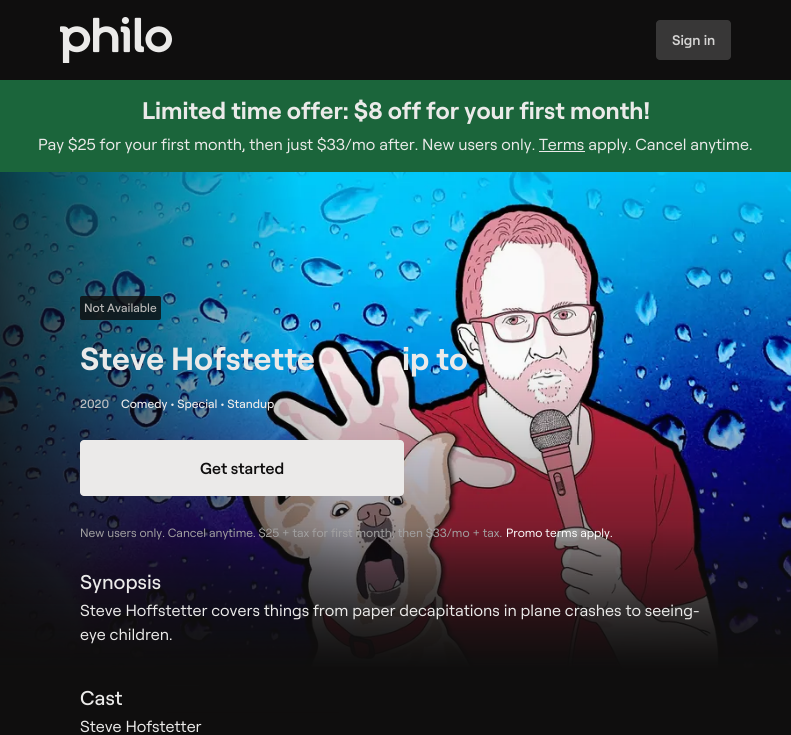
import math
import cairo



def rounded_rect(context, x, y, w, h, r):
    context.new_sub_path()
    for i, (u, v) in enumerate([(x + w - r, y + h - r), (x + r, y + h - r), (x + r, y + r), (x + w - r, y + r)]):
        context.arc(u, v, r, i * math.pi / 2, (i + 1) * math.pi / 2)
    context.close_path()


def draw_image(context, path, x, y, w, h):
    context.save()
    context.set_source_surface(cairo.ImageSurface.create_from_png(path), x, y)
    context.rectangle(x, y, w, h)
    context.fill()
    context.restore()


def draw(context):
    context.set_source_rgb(15 / 255, 14 / 255, 14 / 255)
    context.paint()
    draw_image(context, "images/1.png", 60, 17, 112, 46)
    context.set_source_rgb(56 / 255, 55 / 255, 55 / 255)
    rounded_rect(context, 656, 20, 75, 40, 4)
    context.fill()
    context.set_source_rgb(27 / 255, 101 / 255, 59 / 255)
    context.rectangle(0, 80, 791, 92)
    context.fill()
    context.set_source_rgb(235 / 255, 234 / 255, 233 / 255)
    context.rectangle(539, 151, 46, 1)
    context.fill()
    draw_image(context, "images/2.png", 0, 172, 791, 563)
    context.set_source_rgba(15 / 255, 14 / 255, 14 / 255, 0.82)
    rounded_rect(context, 80, 296, 81, 24, 2)
    context.fill()
    context.set_source_rgb(235 / 255, 234 / 255, 233 / 255)
    rounded_rect(context, 80, 440, 324, 56, 4)
    context.fill()
    context.select_font_face("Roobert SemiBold")
    context.set_font_size(14)
    context.set_source_rgb(213 / 255, 212 / 255, 211 / 255)
    context.move_to(672, 45)
    context.show_text("Sign in")
    context.select_font_face("Roobert", cairo.FontSlant.NORMAL, cairo.FontWeight.BOLD)
    context.set_font_size(24)
    context.set_source_rgb(235 / 255, 234 / 255, 233 / 255)
    context.move_to(142, 119)
    context.show_text("Limited time offer: $8 off for your first month!")
    context.select_font_face("Roobert")
    context.set_font_size(16)
    context.move_to(38, 150)
    context.show_text("Pay $25 for your first month, then just $33/mo after. New users only. Terms apply. Cancel anytime.")
    context.select_font_face("Roobert Medium")
    context.set_font_size(12)
    context.set_source_rgb(186 / 255, 185 / 255, 184 / 255)
    context.move_to(84, 312)
    context.show_text("Not Available")
    context.select_font_face("Roobert", cairo.FontSlant.NORMAL, cairo.FontWeight.BOLD)
    context.set_font_size(32)
    context.set_source_rgb(235 / 255, 234 / 255, 233 / 255)
    context.move_to(80, 370)
    context.show_text("Steve Hofstette")
    context.move_to(402, 370)
    context.show_text("ip to")
    context.select_font_face("Roobert Medium")
    context.set_font_size(12)
    context.set_source_rgb(187 / 255, 190 / 255, 192 / 255)
    context.move_to(80, 408)
    context.show_text("2020")
    context.set_source_rgb(235 / 255, 234 / 255, 233 / 255)
    context.move_to(121, 408)
    context.show_text("Comedy • Special • Standup")
    context.select_font_face("Roobert SemiBold")
    context.set_font_size(16)
    context.set_source_rgb(15 / 255, 14 / 255, 14 / 255)
    context.move_to(200, 474)
    context.show_text("Get started")
    context.select_font_face("Roobert")
    context.set_font_size(12)
    context.set_source_rgb(162 / 255, 161 / 255, 161 / 255)
    context.move_to(80, 537)
    context.show_text("New users only. Cancel anytime. $25 + tax for first month; then $33/mo + tax.")
    context.set_source_rgb(1, 1, 1)
    context.move_to(506, 537)
    context.show_text("Promo terms apply.")
    context.select_font_face("Roobert Medium")
    context.set_font_size(20)
    context.set_source_rgb(235 / 255, 234 / 255, 233 / 255)
    context.move_to(80, 589)
    context.show_text("Synopsis")
    context.select_font_face("Roobert")
    context.set_font_size(16)
    context.move_to(80, 616)
    context.show_text("Steve Hoffstetter covers things from paper decapitations in plane crashes to seeing-")
    context.move_to(80, 640)
    context.show_text("eye children.")
    context.select_font_face("Roobert Medium")
    context.set_font_size(20)
    context.move_to(80, 705)
    context.show_text("Cast")
    context.select_font_face("Roobert")
    context.set_font_size(16)
    context.move_to(80, 732)
    context.show_text("Steve Hofstetter")


surface = cairo.ImageSurface(cairo.Format.RGB24, 791, 735)
context = cairo.Context(surface)
options = cairo.FontOptions()
options.set_hint_metrics(cairo.HintMetrics.OFF)
options.set_hint_style(cairo.HintStyle.NONE)
context.set_font_options(options)
context.set_miter_limit(4)
draw(context)
surface.write_to_png("out.png")
